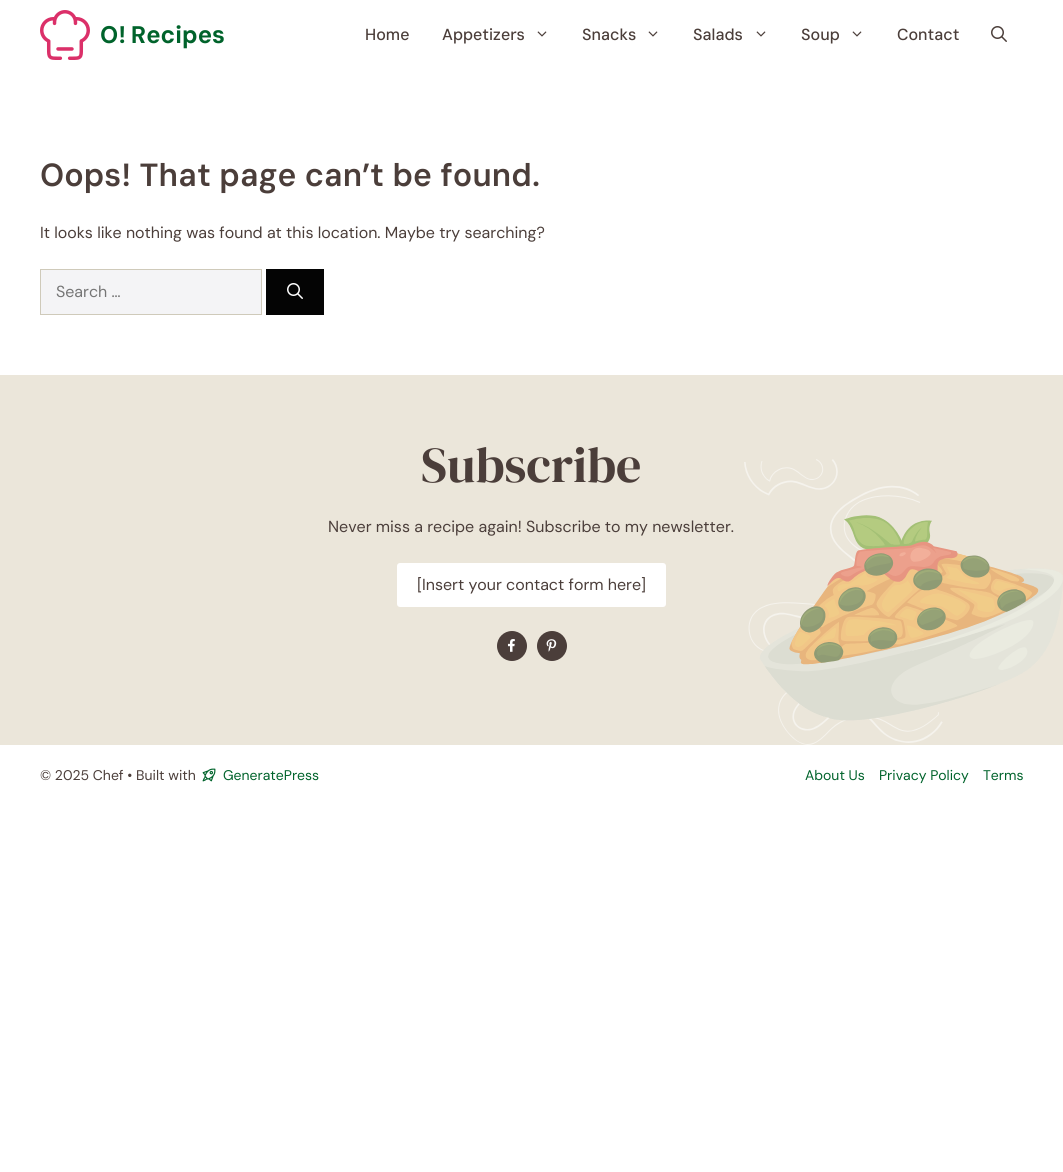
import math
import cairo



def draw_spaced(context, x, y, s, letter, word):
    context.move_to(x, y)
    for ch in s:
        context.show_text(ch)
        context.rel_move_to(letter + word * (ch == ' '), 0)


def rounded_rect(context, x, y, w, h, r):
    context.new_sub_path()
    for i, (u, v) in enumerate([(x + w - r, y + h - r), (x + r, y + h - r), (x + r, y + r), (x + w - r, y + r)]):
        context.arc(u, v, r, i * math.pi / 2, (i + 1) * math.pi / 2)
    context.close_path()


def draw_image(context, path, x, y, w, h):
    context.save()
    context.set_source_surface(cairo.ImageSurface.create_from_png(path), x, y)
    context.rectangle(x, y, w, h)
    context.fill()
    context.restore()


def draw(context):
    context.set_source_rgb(1, 1, 1)
    context.paint()
    draw_image(context, "images/1.png", 40, 10, 50, 50)
    draw_image(context, "images/2.png", 537, 31, 10, 6)
    draw_image(context, "images/2.png", 648, 31, 10, 6)
    draw_image(context, "images/2.png", 756, 31, 10, 6)
    draw_image(context, "images/2.png", 852, 31, 10, 6)
    draw_image(context, "images/3.png", 991, 26, 16, 16)
    context.set_source_rgb(244 / 255, 244 / 255, 246 / 255)
    context.rectangle(40.5, 269.5, 221, 45)
    context.fill_preserve()
    context.set_source_rgb(207 / 255, 202 / 255, 186 / 255)
    context.set_line_width(1)
    context.stroke()
    context.set_source_rgb(4 / 255, 4 / 255, 4 / 255)
    context.rectangle(266, 269, 58, 46)
    context.fill()
    draw_image(context, "images/4.png", 287, 283, 16, 16)
    context.set_source_rgb(235 / 255, 230 / 255, 218 / 255)
    context.rectangle(0, 375, 1063, 370)
    context.fill()
    context.set_source_rgb(1, 1, 1)
    rounded_rect(context, 397, 563, 269, 44, 3)
    context.fill()
    context.set_source_rgb(75 / 255, 62 / 255, 58 / 255)
    context.arc(512, 646, 15, 0, 2 * math.pi)
    context.fill()
    draw_image(context, "images/5.png", 507, 639, 8, 13)
    context.arc(552, 646, 15, 0, 2 * math.pi)
    context.fill()
    draw_image(context, "images/6.png", 546, 639, 11, 13)
    draw_image(context, "images/7.png", 744, 459, 319, 286)
    draw_image(context, "images/8.png", 202, 768, 14, 14)
    context.select_font_face("DM Sans", cairo.FontSlant.NORMAL, cairo.FontWeight.BOLD)
    context.set_font_size(24)
    context.set_source_rgb(0, 99 / 255, 43 / 255)
    draw_spaced(context, 100, 43, "O! Recipes", 0, -1)
    context.select_font_face("DM Sans Medium")
    context.set_font_size(16)
    context.set_source_rgb(75 / 255, 62 / 255, 58 / 255)
    context.move_to(365, 40)
    context.show_text("Home")
    context.move_to(442, 40)
    context.show_text("Appetizers")
    context.move_to(582, 40)
    context.show_text("Snacks")
    context.move_to(693, 40)
    context.show_text("Salads")
    context.move_to(801, 40)
    context.show_text("Soup")
    context.move_to(897, 40)
    context.show_text("Contact")
    context.select_font_face("DM Sans SemiBold")
    context.set_font_size(32)
    draw_spaced(context, 40, 186, "Oops! That page can’t be found.", 0, 0.5)
    context.select_font_face("DM Sans")
    context.set_font_size(16)
    context.move_to(40, 238)
    context.show_text("It looks like nothing was found at this location. Maybe try searching?")
    context.set_source_rgb(117 / 255, 117 / 255, 117 / 255)
    context.move_to(56, 297)
    context.show_text("Search …")
    context.select_font_face("DM Serif Display")
    context.set_font_size(50)
    context.set_source_rgb(75 / 255, 62 / 255, 58 / 255)
    context.move_to(421, 482)
    context.show_text("Subscribe")
    context.select_font_face("DM Sans")
    context.set_font_size(16)
    context.move_to(328, 532)
    context.show_text("Never miss a recipe again! Subscribe to my newsletter.")
    context.move_to(417, 590)
    context.show_text("[Insert your contact form here]")
    context.select_font_face("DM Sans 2")
    context.set_font_size(14)
    context.move_to(40, 780)
    context.show_text("© 2025 Chef • Built with")
    context.set_source_rgb(0, 99 / 255, 43 / 255)
    context.move_to(223, 780)
    context.show_text("GeneratePress")
    context.move_to(805, 780)
    context.show_text("About Us")
    context.move_to(879, 780)
    context.show_text("Privacy Policy")
    context.move_to(983, 780)
    context.show_text("Terms")


surface = cairo.ImageSurface(cairo.Format.RGB24, 1063, 1172)
context = cairo.Context(surface)
options = cairo.FontOptions()
options.set_hint_metrics(cairo.HintMetrics.OFF)
options.set_hint_style(cairo.HintStyle.NONE)
context.set_font_options(options)
context.set_miter_limit(4)
draw(context)
surface.write_to_png("out.png")
